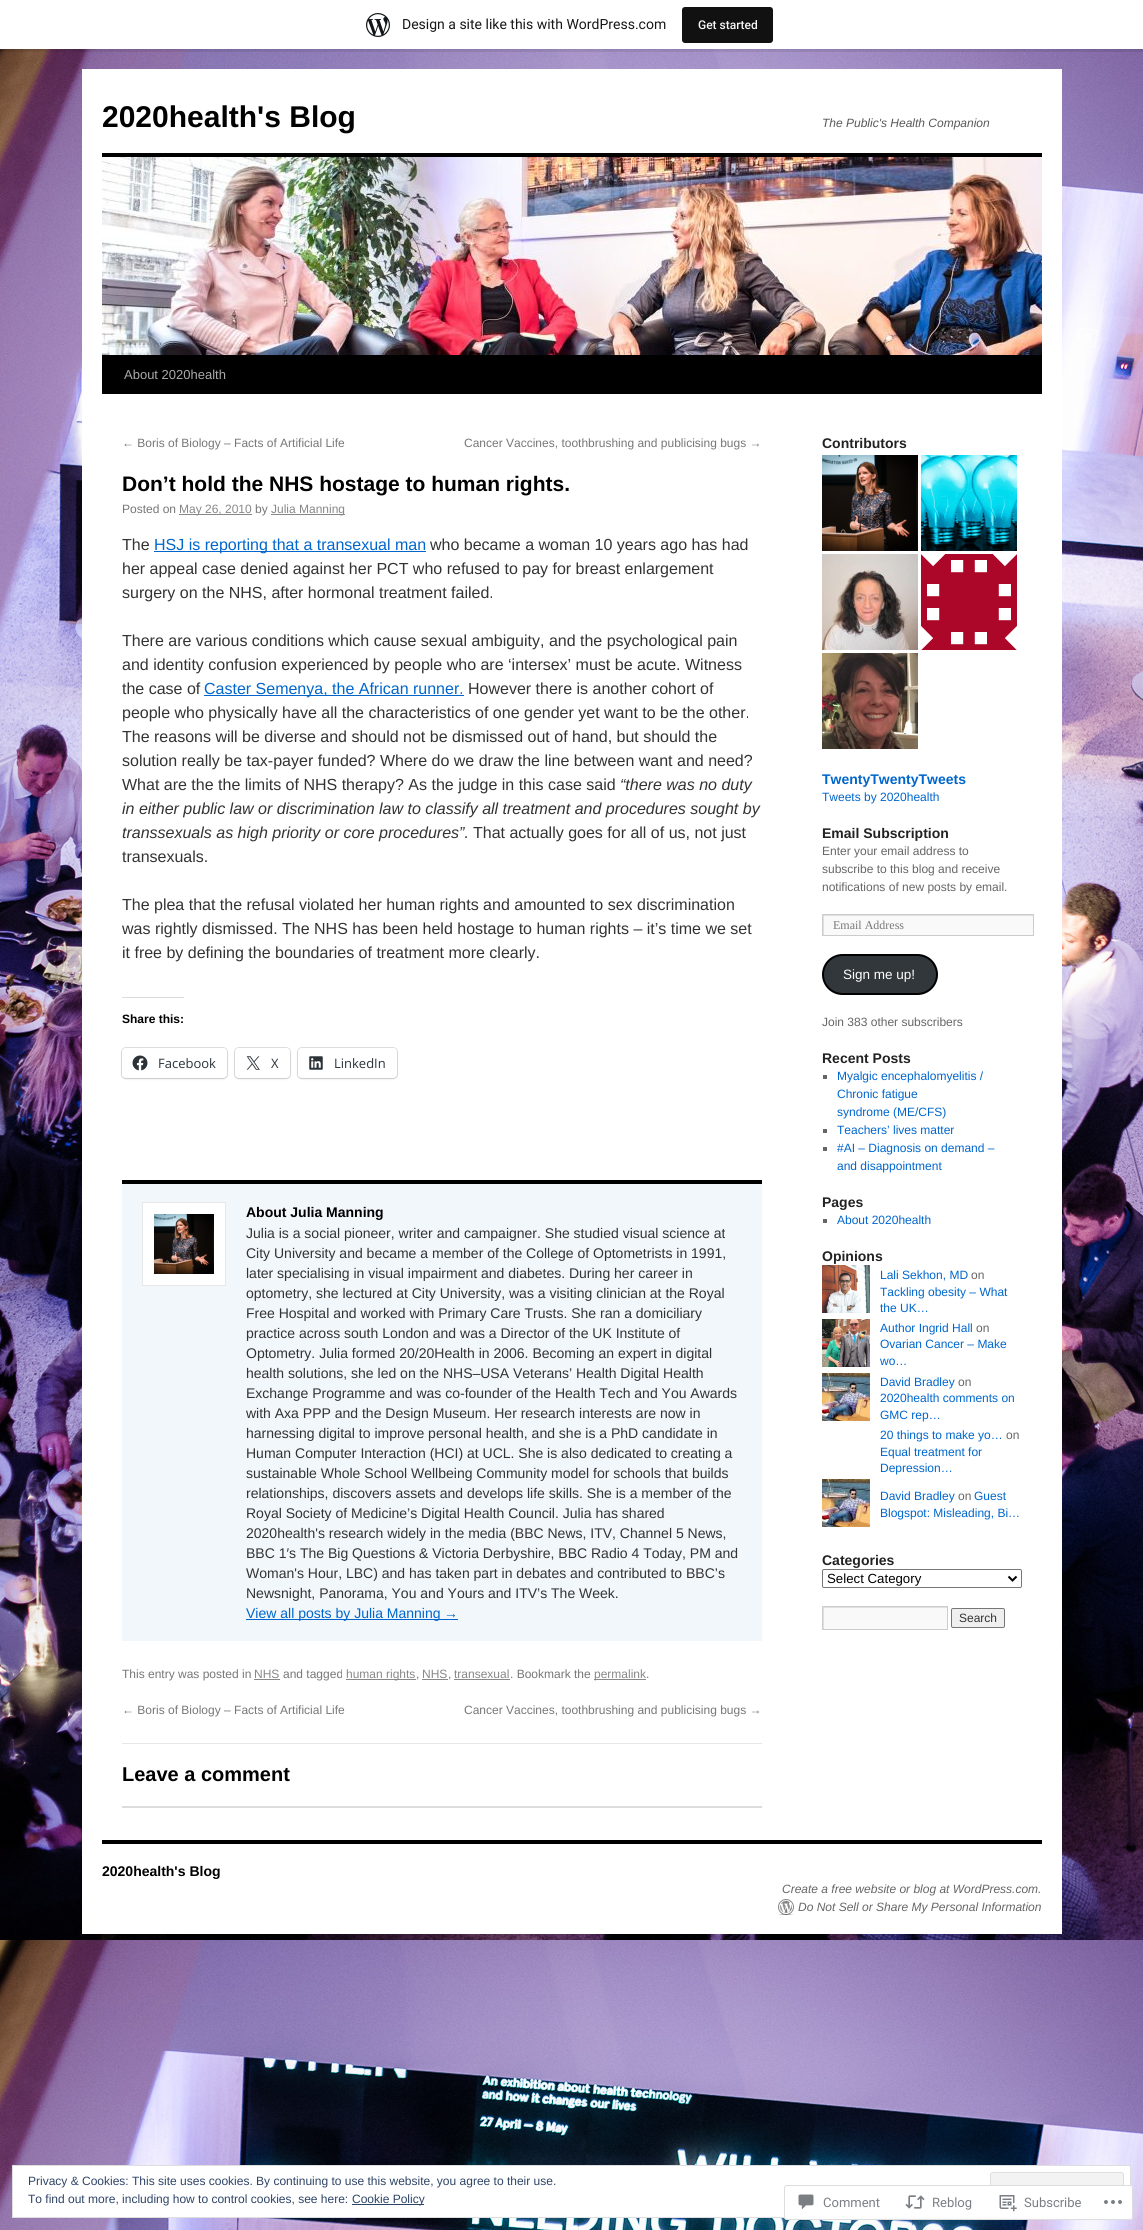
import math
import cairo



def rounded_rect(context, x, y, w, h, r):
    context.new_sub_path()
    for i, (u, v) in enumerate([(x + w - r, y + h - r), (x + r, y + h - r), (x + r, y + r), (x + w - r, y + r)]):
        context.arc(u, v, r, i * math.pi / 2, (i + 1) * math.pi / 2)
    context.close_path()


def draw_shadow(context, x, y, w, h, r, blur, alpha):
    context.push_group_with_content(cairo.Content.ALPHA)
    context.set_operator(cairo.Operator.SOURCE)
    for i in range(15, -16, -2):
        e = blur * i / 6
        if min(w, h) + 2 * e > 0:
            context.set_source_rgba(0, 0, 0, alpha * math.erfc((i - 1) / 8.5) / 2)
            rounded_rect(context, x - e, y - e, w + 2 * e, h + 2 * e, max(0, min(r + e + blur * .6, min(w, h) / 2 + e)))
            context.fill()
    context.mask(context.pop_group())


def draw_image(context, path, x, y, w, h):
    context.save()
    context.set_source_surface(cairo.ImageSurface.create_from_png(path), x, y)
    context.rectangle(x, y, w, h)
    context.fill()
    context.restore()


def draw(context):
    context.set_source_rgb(1, 1, 1)
    context.paint()
    draw_image(context, "images/1.png", 0, 49, 1143, 2181)
    context.set_source_rgb(0, 0, 0)
    draw_shadow(context, 0, 1, 1143, 49, 0, 1, 0.05)
    context.set_source_rgba(0, 0, 0, 0.08)
    context.new_path()
    context.move_to(1, 49)
    context.line_to(1, 52)
    context.line_to(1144, 52)
    context.line_to(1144, 3)
    context.line_to(1143, 3)
    context.line_to(1143, 49)
    context.close_path()
    context.fill()
    context.set_source_rgb(1, 1, 1)
    context.rectangle(0, 0, 1143, 49)
    context.fill()
    draw_image(context, "images/2.png", 366, 13, 24, 24)
    context.set_source_rgb(17 / 255, 17 / 255, 17 / 255)
    rounded_rect(context, 682, 7, 91, 36, 3)
    context.fill()
    context.set_source_rgb(1, 1, 1)
    context.rectangle(82, 69, 980, 1865)
    context.fill()
    context.set_source_rgb(0, 0, 0)
    context.rectangle(102, 153, 940, 4)
    context.fill()
    context.rectangle(102, 355, 940, 39)
    context.fill()
    draw_image(context, "images/3.png", 102, 157, 940, 198)
    context.set_source_rgb(136 / 255, 136 / 255, 136 / 255)
    context.rectangle(179, 514, 73, 1)
    context.fill()
    context.rectangle(271, 514, 74, 1)
    context.fill()
    context.set_source_rgb(0, 102 / 255, 204 / 255)
    context.rectangle(154, 551, 272, 1)
    context.fill()
    context.rectangle(204, 695, 260, 1)
    context.fill()
    context.set_source_rgb(220 / 255, 220 / 255, 222 / 255)
    context.rectangle(122, 997, 62, 1)
    context.fill()
    rounded_rect(context, 121.5, 1047.5, 106, 31, 4.5)
    context.set_source_rgb(224 / 255, 224 / 255, 224 / 255)
    context.set_line_width(1)
    context.stroke()
    context.set_source_rgb(0, 0, 0)
    draw_shadow(context, 122, 1049, 105, 30, 4, 1, 0.12)
    context.set_source_rgb(1, 1, 1)
    rounded_rect(context, 122, 1048, 105, 30, 4)
    context.fill()
    draw_image(context, "images/4.png", 132, 1055, 16, 16)
    rounded_rect(context, 234.5, 1047.5, 56, 31, 4.5)
    context.set_source_rgb(224 / 255, 224 / 255, 224 / 255)
    context.stroke()
    context.set_source_rgb(0, 0, 0)
    draw_shadow(context, 235, 1049, 55, 30, 4, 1, 0.12)
    context.set_source_rgb(1, 1, 1)
    rounded_rect(context, 235, 1048, 55, 30, 4)
    context.fill()
    draw_image(context, "images/5.png", 246, 1056, 14, 14)
    rounded_rect(context, 297.5, 1047.5, 100, 31, 4.5)
    context.set_source_rgb(224 / 255, 224 / 255, 224 / 255)
    context.stroke()
    context.set_source_rgb(0, 0, 0)
    draw_shadow(context, 298, 1049, 99, 30, 4, 1, 0.12)
    context.set_source_rgb(1, 1, 1)
    rounded_rect(context, 298, 1048, 99, 30, 4)
    context.fill()
    draw_image(context, "images/6.png", 309, 1056, 14, 14)
    context.set_source_rgb(242 / 255, 247 / 255, 252 / 255)
    context.rectangle(122, 1184, 640, 457)
    context.fill()
    context.set_source_rgb(0, 0, 0)
    context.rectangle(122, 1180, 640, 4)
    context.fill()
    context.set_source_rgb(1, 1, 1)
    context.rectangle(142.5, 1202.5, 83, 83)
    context.fill_preserve()
    context.set_source_rgb(231 / 255, 231 / 255, 231 / 255)
    context.stroke()
    draw_image(context, "images/7.png", 154, 1214, 60, 60)
    context.set_source_rgb(0, 102 / 255, 204 / 255)
    context.rectangle(246, 1619, 212, 1)
    context.fill()
    context.set_source_rgb(136 / 255, 136 / 255, 136 / 255)
    context.rectangle(254, 1679, 26, 1)
    context.fill()
    context.rectangle(346, 1679, 70, 1)
    context.fill()
    context.rectangle(422, 1679, 26, 1)
    context.fill()
    context.rectangle(454, 1679, 56, 1)
    context.fill()
    context.rectangle(594, 1679, 52, 1)
    context.fill()
    context.set_source_rgb(231 / 255, 231 / 255, 231 / 255)
    context.rectangle(122, 1743, 640, 1)
    context.fill()
    context.set_source_rgb(220 / 255, 220 / 255, 222 / 255)
    context.rectangle(122, 1806, 640, 2)
    context.fill()
    draw_image(context, "images/8.png", 822, 455, 96, 96)
    draw_image(context, "images/9.png", 921, 455, 96, 96)
    draw_image(context, "images/10.png", 822, 554, 96, 96)
    draw_image(context, "images/11.png", 921, 554, 96, 96)
    draw_image(context, "images/12.png", 822, 653, 96, 96)
    context.set_source_rgb(249 / 255, 249 / 255, 249 / 255)
    context.rectangle(824, 916, 209, 19)
    context.fill()
    context.save()
    context.rectangle(823, 915, 210, 20)
    context.clip()
    context.set_source_rgb(224 / 255, 224 / 255, 224 / 255)
    context.set_fill_rule(cairo.FillRule.EVEN_ODD)
    context.new_path()
    context.move_to(724, 816)
    context.line_to(1132, 816)
    context.line_to(1132, 1034)
    context.line_to(724, 1034)
    context.close_path()
    context.move_to(824, 916)
    context.line_to(1034, 916)
    context.line_to(1034, 936)
    context.line_to(824, 936)
    context.close_path()
    context.fill()
    context.restore()
    context.rectangle(822.5, 914.5, 211, 21)
    context.set_source_rgb(204 / 255, 204 / 255, 204 / 255)
    context.stroke()
    context.set_source_rgb(50 / 255, 55 / 255, 60 / 255)
    rounded_rect(context, 823, 955, 114, 39, 19.5)
    context.fill_preserve()
    context.set_source_rgb(0, 0, 0)
    context.set_line_width(2)
    context.stroke()
    context.set_source_rgb(102 / 255, 102 / 255, 102 / 255)
    context.rectangle(823, 1075, 4, 4)
    context.fill()
    context.rectangle(823, 1129, 4, 4)
    context.fill()
    context.rectangle(823, 1147, 4, 4)
    context.fill()
    context.rectangle(823, 1219, 4, 4)
    context.fill()
    draw_image(context, "images/13.png", 822, 1265, 48, 48)
    draw_image(context, "images/14.png", 822, 1319, 48, 48)
    draw_image(context, "images/15.png", 822, 1373, 48, 48)
    draw_image(context, "images/15.png", 822, 1479, 48, 48)
    rounded_rect(context, 822.5, 1569.5, 199, 18, 1.5)
    context.set_source_rgb(118 / 255, 118 / 255, 118 / 255)
    context.set_line_width(1)
    context.stroke()
    context.new_path()
    context.move_to(1008.5, 1576.5)
    context.line_to(1012.5, 1580.5)
    context.line_to(1016.5, 1576.5)
    context.set_source_rgb(0, 0, 0)
    context.set_line_width(2)
    context.stroke()
    context.set_source_rgb(249 / 255, 249 / 255, 249 / 255)
    context.rectangle(824, 1608, 123, 21)
    context.fill()
    context.save()
    context.rectangle(823, 1607, 124, 22)
    context.clip()
    context.set_source_rgb(224 / 255, 224 / 255, 224 / 255)
    context.set_fill_rule(cairo.FillRule.EVEN_ODD)
    context.new_path()
    context.move_to(724, 1508)
    context.line_to(1046, 1508)
    context.line_to(1046, 1728)
    context.line_to(724, 1728)
    context.close_path()
    context.move_to(824, 1608)
    context.line_to(948, 1608)
    context.line_to(948, 1630)
    context.line_to(824, 1630)
    context.close_path()
    context.fill()
    context.restore()
    context.rectangle(822.5, 1606.5, 125, 23)
    context.set_source_rgb(204 / 255, 204 / 255, 204 / 255)
    context.set_line_width(1)
    context.stroke()
    context.set_source_rgb(239 / 255, 239 / 255, 239 / 255)
    rounded_rect(context, 951.5, 1608.5, 53, 19, 1.5)
    context.fill_preserve()
    context.set_source_rgb(118 / 255, 118 / 255, 118 / 255)
    context.stroke()
    context.set_source_rgb(0, 0, 0)
    context.rectangle(102, 1840, 940, 4)
    context.fill()
    draw_image(context, "images/16.png", 778, 1899, 16, 16)
    context.set_source_rgb(1, 1, 1)
    context.rectangle(12.5, 2165.5, 1118, 52)
    context.fill_preserve()
    context.set_source_rgb(222 / 255, 222 / 255, 222 / 255)
    context.stroke()
    context.set_source_rgb(243 / 255, 243 / 255, 243 / 255)
    rounded_rect(context, 990.5, 2172.5, 133, 38, 2.5)
    context.fill_preserve()
    context.set_source_rgb(222 / 255, 222 / 255, 222 / 255)
    context.stroke()
    context.set_source_rgb(46 / 255, 68 / 255, 103 / 255)
    context.rectangle(352, 2204, 72, 1)
    context.fill()
    context.set_source_rgba(1, 1, 1, 0.98)
    rounded_rect(context, 784, 2185, 349, 35, 3)
    context.fill()
    rounded_rect(context, 784.5, 2185.5, 348, 34, 2.5)
    context.set_source_rgba(220 / 255, 220 / 255, 222 / 255, 0.98)
    context.stroke()
    draw_image(context, "images/17.png", 798, 2194, 16, 16)
    draw_image(context, "images/18.png", 905, 2195, 20, 14)
    draw_image(context, "images/19.png", 999, 2195, 18, 17)
    draw_image(context, "images/20.png", 1104, 2200, 18, 4)
    context.select_font_face("Roboto")
    context.set_font_size(14)
    context.set_source_rgb(23 / 255, 23 / 255, 23 / 255)
    context.move_to(402, 29)
    context.show_text("Design a site like this with WordPress.com")
    context.select_font_face("Roboto Medium")
    context.set_font_size(12)
    context.set_source_rgb(246 / 255, 247 / 255, 247 / 255)
    context.move_to(698, 29)
    context.show_text("Get started")
    context.select_font_face("Liberation Sans", cairo.FontSlant.NORMAL, cairo.FontWeight.BOLD)
    context.set_font_size(30)
    context.set_source_rgb(0, 0, 0)
    context.move_to(102, 127)
    context.show_text("2020health's Blog")
    context.select_font_face("Arimo", cairo.FontSlant.ITALIC)
    context.set_font_size(12)
    context.set_source_rgb(89 / 255, 89 / 255, 89 / 255)
    context.move_to(822, 127)
    context.show_text("The Public's Health Companion")
    context.select_font_face("Liberation Sans")
    context.set_font_size(13)
    context.set_source_rgb(170 / 255, 170 / 255, 170 / 255)
    context.move_to(124, 379)
    context.show_text("About 2020health")
    context.set_font_size(12)
    context.set_source_rgb(119 / 255, 119 / 255, 119 / 255)
    context.move_to(122, 447)
    context.show_text("← Boris of Biology – Facts of Artificial Life")
    context.move_to(464, 447)
    context.show_text("Cancer Vaccines, toothbrushing and publicising bugs →")
    context.select_font_face("Liberation Sans", cairo.FontSlant.NORMAL, cairo.FontWeight.BOLD)
    context.set_font_size(21)
    context.set_source_rgb(0, 0, 0)
    context.move_to(122, 491)
    context.show_text("Don’t hold the NHS hostage to human rights.")
    context.select_font_face("Arimo")
    context.set_font_size(12)
    context.set_source_rgb(119 / 255, 119 / 255, 119 / 255)
    context.move_to(122, 513)
    context.show_text("Posted on")
    context.set_source_rgb(136 / 255, 136 / 255, 136 / 255)
    context.move_to(179, 513)
    context.show_text("May 26, 2010")
    context.set_source_rgb(119 / 255, 119 / 255, 119 / 255)
    context.move_to(255, 513)
    context.show_text("by")
    context.set_source_rgb(136 / 255, 136 / 255, 136 / 255)
    context.move_to(271, 513)
    context.show_text("Julia Manning")
    context.set_font_size(16)
    context.set_source_rgb(51 / 255, 51 / 255, 51 / 255)
    context.move_to(122, 550)
    context.show_text("The")
    context.set_source_rgb(0, 102 / 255, 204 / 255)
    context.move_to(154, 550)
    context.show_text("HSJ is reporting that a transexual man")
    context.set_source_rgb(51 / 255, 51 / 255, 51 / 255)
    context.move_to(430, 550)
    context.show_text("who became a woman 10 years ago has had")
    context.move_to(122, 574)
    context.show_text("her appeal case denied against her PCT who refused to pay for breast enlargement")
    context.move_to(122, 598)
    context.show_text("surgery on the NHS, after hormonal treatment failed.")
    context.move_to(122, 646)
    context.show_text("There are various conditions which cause sexual ambiguity, and the psychological pain")
    context.move_to(122, 670)
    context.show_text("and identity confusion experienced by people who are ‘intersex’ must be acute. Witness")
    context.move_to(122, 694)
    context.show_text("the case of")
    context.set_source_rgb(0, 102 / 255, 204 / 255)
    context.move_to(204, 694)
    context.show_text("Caster Semenya, the African runner.")
    context.set_source_rgb(51 / 255, 51 / 255, 51 / 255)
    context.move_to(468, 694)
    context.show_text("However there is another cohort of")
    context.move_to(122, 718)
    context.show_text("people who physically have all the characteristics of one gender yet want to be the other.")
    context.move_to(122, 742)
    context.show_text("The reasons will be diverse and should not be dismissed out of hand, but should the")
    context.move_to(122, 766)
    context.show_text("solution really be tax-payer funded? Where do we draw the line between want and need?")
    context.move_to(122, 790)
    context.show_text("What are the the limits of NHS therapy? As the judge in this case said")
    context.select_font_face("Arimo", cairo.FontSlant.ITALIC)
    context.move_to(620, 790)
    context.show_text("“there was no duty")
    context.move_to(122, 814)
    context.show_text("in either public law or discrimination law to classify all treatment and procedures sought by")
    context.move_to(122, 838)
    context.show_text("transsexuals as high priority or core procedures”.")
    context.select_font_face("Arimo")
    context.move_to(473, 838)
    context.show_text("That actually goes for all of us, not just")
    context.move_to(122, 862)
    context.show_text("transexuals.")
    context.move_to(122, 910)
    context.show_text("The plea that the refusal violated her human rights and amounted to sex discrimination")
    context.move_to(122, 934)
    context.show_text("was rightly dismissed. The NHS has been held hostage to human rights – it’s time we set")
    context.move_to(122, 958)
    context.show_text("it free by defining the boundaries of treatment more clearly.")
    context.select_font_face("Arimo", cairo.FontSlant.NORMAL, cairo.FontWeight.BOLD)
    context.set_font_size(12)
    context.set_source_rgb(0, 0, 0)
    context.move_to(122, 1023)
    context.show_text("Share this:")
    context.select_font_face("Open Sans")
    context.set_font_size(13)
    context.set_source_rgb(44 / 255, 51 / 255, 56 / 255)
    context.move_to(158, 1068)
    context.show_text("Facebook")
    context.move_to(271, 1068)
    context.show_text("X")
    context.move_to(334, 1068)
    context.show_text("LinkedIn")
    context.select_font_face("Arimo", cairo.FontSlant.NORMAL, cairo.FontWeight.BOLD)
    context.set_font_size(14)
    context.set_source_rgb(0, 0, 0)
    context.move_to(246, 1217)
    context.show_text("About Julia Manning")
    context.select_font_face("Arimo")
    context.set_source_rgb(51 / 255, 51 / 255, 51 / 255)
    context.move_to(246, 1238)
    context.show_text("Julia is a social pioneer, writer and campaigner. She studied visual science at")
    context.move_to(246, 1258)
    context.show_text("City University and became a member of the College of Optometrists in 1991,")
    context.move_to(246, 1278)
    context.show_text("later specialising in visual impairment and diabetes. During her career in")
    context.move_to(246, 1298)
    context.show_text("optometry, she lectured at City University, was a visiting clinician at the Royal")
    context.move_to(246, 1318)
    context.show_text("Free Hospital and worked with Primary Care Trusts. She ran a domiciliary")
    context.move_to(246, 1338)
    context.show_text("practice across south London and was a Director of the UK Institute of")
    context.move_to(246, 1358)
    context.show_text("Optometry. Julia formed 20/20Health in 2006. Becoming an expert in digital")
    context.move_to(246, 1378)
    context.show_text("health solutions, she led on the NHS–USA Veterans’ Health Digital Health")
    context.move_to(246, 1398)
    context.show_text("Exchange Programme and was co-founder of the Health Tech and You Awards")
    context.move_to(246, 1418)
    context.show_text("with Axa PPP and the Design Museum. Her research interests are now in")
    context.move_to(246, 1438)
    context.show_text("harnessing digital to improve personal health, and she is a PhD candidate in")
    context.move_to(246, 1458)
    context.show_text("Human Computer Interaction (HCI) at UCL. She is also dedicated to creating a")
    context.move_to(246, 1478)
    context.show_text("sustainable Whole School Wellbeing Community model for schools that builds")
    context.move_to(246, 1498)
    context.show_text("relationships, discovers assets and develops life skills. She is a member of the")
    context.move_to(246, 1518)
    context.show_text("Royal Society of Medicine’s Digital Health Council. Julia has shared")
    context.move_to(246, 1538)
    context.show_text("2020health's research widely in the media (BBC News, ITV, Channel 5 News,")
    context.move_to(246, 1558)
    context.show_text("BBC 1′s The Big Questions & Victoria Derbyshire, BBC Radio 4 Today, PM and")
    context.move_to(246, 1578)
    context.show_text("Woman's Hour, LBC) and has taken part in debates and contributed to BBC’s")
    context.move_to(246, 1598)
    context.show_text("Newsnight, Panorama, You and Yours and ITV’s The Week.")
    context.set_source_rgb(0, 102 / 255, 204 / 255)
    context.move_to(246, 1618)
    context.show_text("View all posts by Julia Manning")
    context.select_font_face("Liberation Sans")
    context.move_to(444, 1618)
    context.show_text("→")
    context.select_font_face("Arimo")
    context.set_font_size(12)
    context.set_source_rgb(119 / 255, 119 / 255, 119 / 255)
    context.move_to(122, 1678)
    context.show_text("This entry was posted in")
    context.set_source_rgb(136 / 255, 136 / 255, 136 / 255)
    context.move_to(254, 1678)
    context.show_text("NHS")
    context.set_source_rgb(119 / 255, 119 / 255, 119 / 255)
    context.move_to(283, 1678)
    context.show_text("and tagged")
    context.set_source_rgb(136 / 255, 136 / 255, 136 / 255)
    context.move_to(346, 1678)
    context.show_text("human rights")
    context.set_source_rgb(119 / 255, 119 / 255, 119 / 255)
    context.move_to(416, 1678)
    context.show_text(",")
    context.set_source_rgb(136 / 255, 136 / 255, 136 / 255)
    context.move_to(422, 1678)
    context.show_text("NHS")
    context.set_source_rgb(119 / 255, 119 / 255, 119 / 255)
    context.move_to(448, 1678)
    context.show_text(",")
    context.set_source_rgb(136 / 255, 136 / 255, 136 / 255)
    context.move_to(454, 1678)
    context.show_text("transexual")
    context.set_source_rgb(119 / 255, 119 / 255, 119 / 255)
    context.move_to(510, 1678)
    context.show_text(". Bookmark the")
    context.set_source_rgb(136 / 255, 136 / 255, 136 / 255)
    context.move_to(594, 1678)
    context.show_text("permalink")
    context.set_source_rgb(119 / 255, 119 / 255, 119 / 255)
    context.move_to(646, 1678)
    context.show_text(".")
    context.select_font_face("Liberation Sans")
    context.move_to(122, 1714)
    context.show_text("← Boris of Biology – Facts of Artificial Life")
    context.move_to(464, 1714)
    context.show_text("Cancer Vaccines, toothbrushing and publicising bugs →")
    context.select_font_face("Liberation Sans", cairo.FontSlant.NORMAL, cairo.FontWeight.BOLD)
    context.set_font_size(20)
    context.set_source_rgb(0, 0, 0)
    context.move_to(122, 1781)
    context.show_text("Leave a comment")
    context.set_font_size(14)
    context.set_source_rgb(34 / 255, 34 / 255, 34 / 255)
    context.move_to(822, 448)
    context.show_text("Contributors")
    context.set_source_rgb(0, 102 / 255, 204 / 255)
    context.move_to(822, 784)
    context.show_text("TwentyTwentyTweets")
    context.select_font_face("Arimo")
    context.set_font_size(12)
    context.move_to(822, 801)
    context.show_text("Tweets by 2020health")
    context.select_font_face("Liberation Sans", cairo.FontSlant.NORMAL, cairo.FontWeight.BOLD)
    context.set_font_size(14)
    context.set_source_rgb(34 / 255, 34 / 255, 34 / 255)
    context.move_to(822, 838)
    context.show_text("Email Subscription")
    context.select_font_face("Arimo")
    context.set_font_size(12)
    context.set_source_rgb(102 / 255, 102 / 255, 102 / 255)
    context.move_to(822, 855)
    context.show_text("Enter your email address to")
    context.move_to(822, 873)
    context.show_text("subscribe to this blog and receive")
    context.move_to(822, 891)
    context.show_text("notifications of new posts by email.")
    context.select_font_face("Liberation Serif")
    context.set_source_rgb(119 / 255, 119 / 255, 119 / 255)
    context.move_to(833, 929)
    context.show_text("Email Address")
    context.select_font_face("Liberation Sans")
    context.set_font_size(13.5)
    context.set_source_rgb(1, 1, 1)
    context.move_to(843, 979)
    context.show_text("Sign me up!")
    context.select_font_face("Arimo")
    context.set_font_size(12)
    context.set_source_rgb(102 / 255, 102 / 255, 102 / 255)
    context.move_to(822, 1026)
    context.show_text("Join 383 other subscribers")
    context.select_font_face("Liberation Sans", cairo.FontSlant.NORMAL, cairo.FontWeight.BOLD)
    context.set_font_size(14)
    context.set_source_rgb(34 / 255, 34 / 255, 34 / 255)
    context.move_to(822, 1063)
    context.show_text("Recent Posts")
    context.select_font_face("Arimo")
    context.set_font_size(12)
    context.set_source_rgb(0, 102 / 255, 204 / 255)
    context.move_to(837, 1080)
    context.show_text("Myalgic encephalomyelitis /")
    context.move_to(837, 1098)
    context.show_text("Chronic fatigue")
    context.move_to(837, 1116)
    context.show_text("syndrome (ME/CFS)")
    context.move_to(837, 1134)
    context.show_text("Teachers’ lives matter")
    context.move_to(837, 1152)
    context.show_text("#AI – Diagnosis on demand –")
    context.move_to(837, 1170)
    context.show_text("and disappointment")
    context.select_font_face("Liberation Sans", cairo.FontSlant.NORMAL, cairo.FontWeight.BOLD)
    context.set_font_size(14)
    context.set_source_rgb(34 / 255, 34 / 255, 34 / 255)
    context.move_to(822, 1207)
    context.show_text("Pages")
    context.select_font_face("Arimo")
    context.set_font_size(12)
    context.set_source_rgb(0, 102 / 255, 204 / 255)
    context.move_to(837, 1224)
    context.show_text("About 2020health")
    context.select_font_face("Liberation Sans", cairo.FontSlant.NORMAL, cairo.FontWeight.BOLD)
    context.set_font_size(14)
    context.set_source_rgb(34 / 255, 34 / 255, 34 / 255)
    context.move_to(822, 1261)
    context.show_text("Opinions")
    context.select_font_face("Arimo")
    context.set_font_size(12)
    context.set_source_rgb(0, 102 / 255, 204 / 255)
    context.move_to(880, 1279)
    context.show_text("Lali Sekhon, MD")
    context.set_source_rgb(102 / 255, 102 / 255, 102 / 255)
    context.move_to(971, 1279)
    context.show_text("on")
    context.set_source_rgb(0, 102 / 255, 204 / 255)
    context.move_to(880, 1296)
    context.show_text("Tackling obesity – What")
    context.move_to(880, 1312)
    context.show_text("the UK…")
    context.move_to(880, 1332)
    context.show_text("Author Ingrid Hall")
    context.set_source_rgb(102 / 255, 102 / 255, 102 / 255)
    context.move_to(976, 1332)
    context.show_text("on")
    context.set_source_rgb(0, 102 / 255, 204 / 255)
    context.move_to(880, 1348)
    context.show_text("Ovarian Cancer – Make")
    context.move_to(880, 1365)
    context.show_text("wo…")
    context.move_to(880, 1386)
    context.show_text("David Bradley")
    context.set_source_rgb(102 / 255, 102 / 255, 102 / 255)
    context.move_to(958, 1386)
    context.show_text("on")
    context.set_source_rgb(0, 102 / 255, 204 / 255)
    context.move_to(880, 1402)
    context.show_text("2020health comments on")
    context.move_to(880, 1419)
    context.show_text("GMC rep…")
    context.move_to(880, 1439)
    context.show_text("20 things to make yo…")
    context.set_source_rgb(102 / 255, 102 / 255, 102 / 255)
    context.move_to(1006, 1439)
    context.show_text("on")
    context.set_source_rgb(0, 102 / 255, 204 / 255)
    context.move_to(880, 1456)
    context.show_text("Equal treatment for")
    context.move_to(880, 1472)
    context.show_text("Depression…")
    context.move_to(880, 1500)
    context.show_text("David Bradley")
    context.set_source_rgb(102 / 255, 102 / 255, 102 / 255)
    context.move_to(958, 1500)
    context.show_text("on")
    context.set_source_rgb(0, 102 / 255, 204 / 255)
    context.move_to(974, 1500)
    context.show_text("Guest")
    context.move_to(880, 1517)
    context.show_text("Blogspot: Misleading, Bi…")
    context.select_font_face("Liberation Sans", cairo.FontSlant.NORMAL, cairo.FontWeight.BOLD)
    context.set_font_size(14)
    context.set_source_rgb(34 / 255, 34 / 255, 34 / 255)
    context.move_to(822, 1565)
    context.show_text("Categories")
    context.select_font_face("Liberation Sans")
    context.set_font_size(13.25)
    context.set_source_rgb(0, 0, 0)
    context.move_to(827, 1583)
    context.show_text("Select Category")
    context.set_font_size(12)
    context.set_source_rgb(51 / 255, 51 / 255, 51 / 255)
    context.move_to(959, 1622)
    context.show_text("Search")
    context.select_font_face("Arimo", cairo.FontSlant.NORMAL, cairo.FontWeight.BOLD)
    context.set_font_size(14)
    context.set_source_rgb(0, 0, 0)
    context.move_to(102, 1876)
    context.show_text("2020health's Blog")
    context.select_font_face("Arimo", cairo.FontSlant.ITALIC)
    context.set_font_size(12)
    context.set_source_rgb(102 / 255, 102 / 255, 102 / 255)
    context.move_to(782, 1893)
    context.show_text("Create a free website or blog at WordPress.com.")
    context.move_to(798, 1911)
    context.show_text("Do Not Sell or Share My Personal Information")
    context.select_font_face("Arimo")
    context.set_source_rgb(46 / 255, 68 / 255, 103 / 255)
    context.move_to(28, 2185)
    context.show_text("Privacy & Cookies: This site uses cookies. By continuing to use this website, you agree to their use.")
    context.move_to(28, 2203)
    context.show_text("To find out more, including how to control cookies, see here:")
    context.move_to(352, 2203)
    context.show_text("Cookie Policy")
    context.select_font_face("Roboto")
    context.set_font_size(13)
    context.set_source_rgb(123 / 255, 127 / 255, 133 / 255)
    context.move_to(823, 2207)
    context.show_text("Comment")
    context.move_to(932, 2207)
    context.show_text("Reblog")
    context.move_to(1024, 2207)
    context.show_text("Subscribe")


surface = cairo.ImageSurface(cairo.Format.RGB24, 1143, 2230)
context = cairo.Context(surface)
options = cairo.FontOptions()
options.set_hint_metrics(cairo.HintMetrics.OFF)
options.set_hint_style(cairo.HintStyle.NONE)
context.set_font_options(options)
context.set_miter_limit(4)
draw(context)
surface.write_to_png("out.png")
